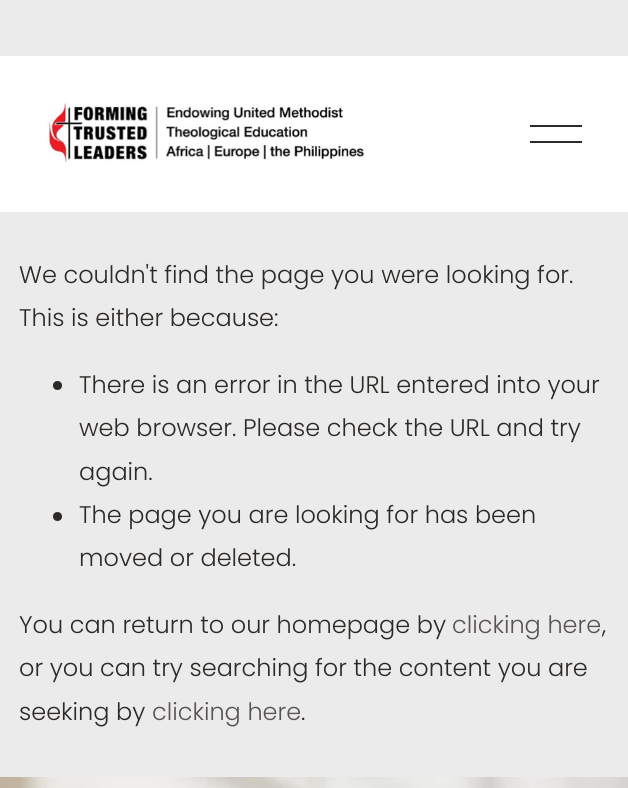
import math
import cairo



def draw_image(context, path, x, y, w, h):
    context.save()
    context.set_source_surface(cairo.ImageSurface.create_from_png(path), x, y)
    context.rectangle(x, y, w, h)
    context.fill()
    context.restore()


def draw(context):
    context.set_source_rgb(235 / 255, 235 / 255, 235 / 255)
    context.paint()
    context.set_source_rgb(1, 1, 1)
    context.rectangle(0, 56, 628, 156)
    context.fill()
    draw_image(context, "images/1.png", 45, 102, 320, 61)
    context.set_source_rgb(45 / 255, 41 / 255, 38 / 255)
    context.rectangle(530, 125, 52, 2)
    context.fill()
    context.rectangle(530, 141, 52, 2)
    context.fill()
    context.arc(57.5, 385.5, 4.5, 0, 2 * math.pi)
    context.fill()
    context.arc(57.5, 516.5, 4.5, 0, 2 * math.pi)
    context.fill()
    draw_image(context, "images/2.png", 0, 777, 628, 11)
    context.select_font_face("Poppins Light")
    context.set_font_size(24)
    context.move_to(19, 283)
    context.show_text("We couldn't find the page you were looking for.")
    context.move_to(19, 326)
    context.show_text("This is either because:")
    context.move_to(79, 393)
    context.show_text("There is an error in the URL entered into your")
    context.move_to(79, 436)
    context.show_text("web browser. Please check the URL and try")
    context.move_to(79, 480)
    context.show_text("again.")
    context.move_to(79, 523)
    context.show_text("The page you are looking for has been")
    context.move_to(79, 566)
    context.show_text("moved or deleted.")
    context.move_to(19, 633)
    context.show_text("You can return to our homepage by")
    context.set_source_rgb(90 / 255, 83 / 255, 86 / 255)
    context.move_to(452, 633)
    context.show_text("clicking here")
    context.set_source_rgb(45 / 255, 41 / 255, 38 / 255)
    context.move_to(602, 633)
    context.show_text(",")
    context.move_to(19, 676)
    context.show_text("or you can try searching for the content you are")
    context.move_to(19, 720)
    context.show_text("seeking by")
    context.set_source_rgb(90 / 255, 83 / 255, 86 / 255)
    context.move_to(152, 720)
    context.show_text("clicking here")
    context.set_source_rgb(45 / 255, 41 / 255, 38 / 255)
    context.move_to(301, 720)
    context.show_text(".")


surface = cairo.ImageSurface(cairo.Format.RGB24, 628, 788)
context = cairo.Context(surface)
options = cairo.FontOptions()
options.set_hint_metrics(cairo.HintMetrics.OFF)
options.set_hint_style(cairo.HintStyle.NONE)
context.set_font_options(options)
context.set_miter_limit(4)
draw(context)
surface.write_to_png("out.png")
